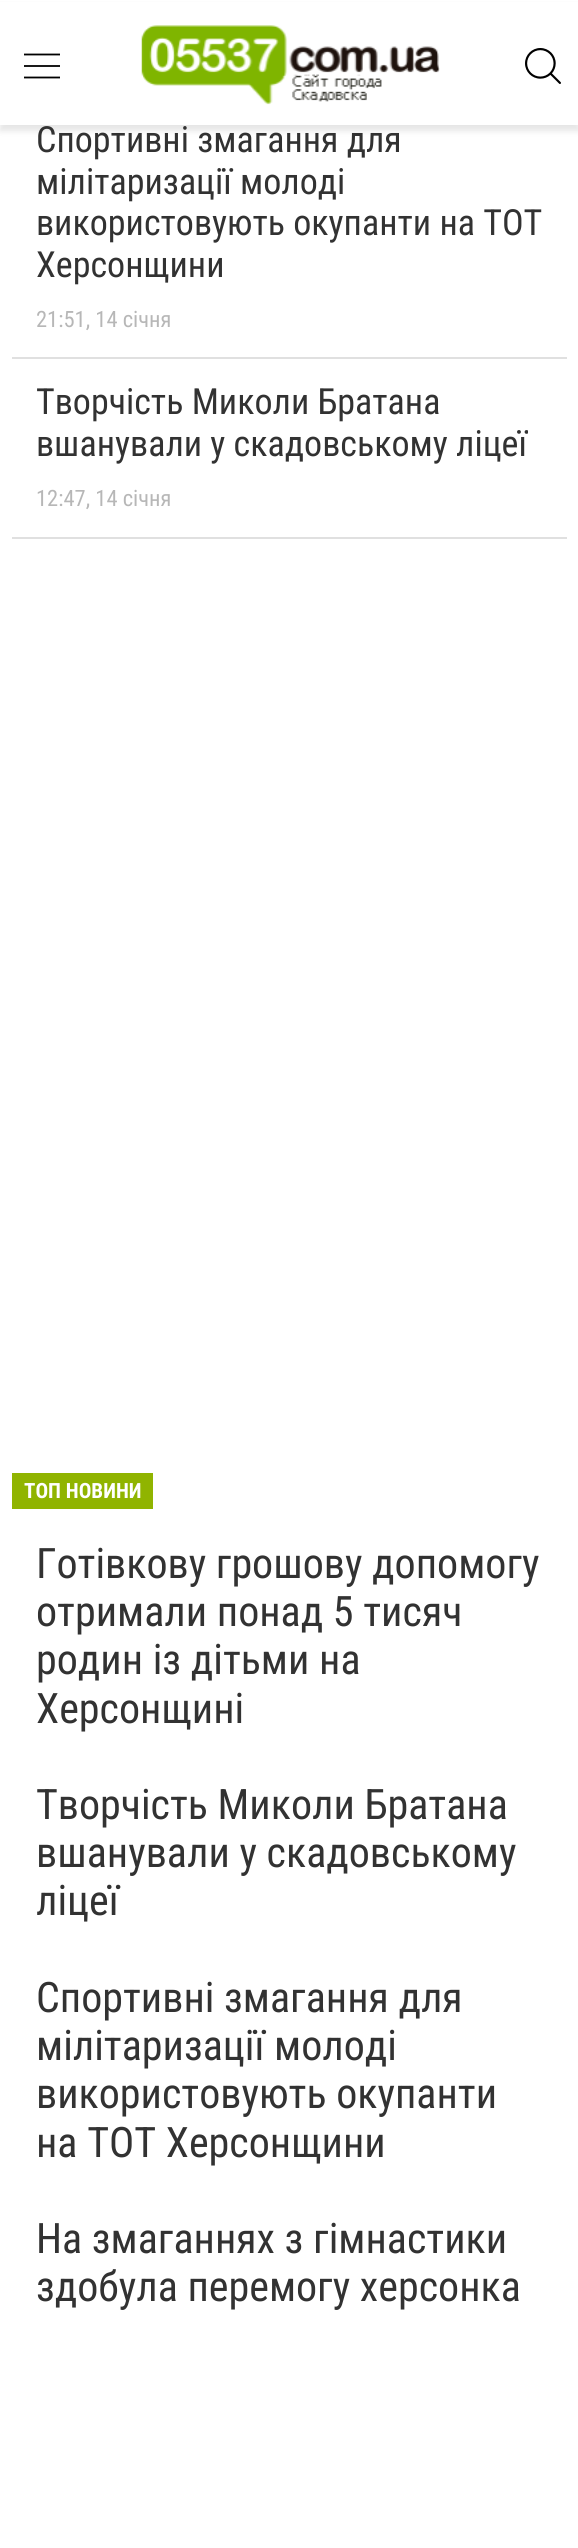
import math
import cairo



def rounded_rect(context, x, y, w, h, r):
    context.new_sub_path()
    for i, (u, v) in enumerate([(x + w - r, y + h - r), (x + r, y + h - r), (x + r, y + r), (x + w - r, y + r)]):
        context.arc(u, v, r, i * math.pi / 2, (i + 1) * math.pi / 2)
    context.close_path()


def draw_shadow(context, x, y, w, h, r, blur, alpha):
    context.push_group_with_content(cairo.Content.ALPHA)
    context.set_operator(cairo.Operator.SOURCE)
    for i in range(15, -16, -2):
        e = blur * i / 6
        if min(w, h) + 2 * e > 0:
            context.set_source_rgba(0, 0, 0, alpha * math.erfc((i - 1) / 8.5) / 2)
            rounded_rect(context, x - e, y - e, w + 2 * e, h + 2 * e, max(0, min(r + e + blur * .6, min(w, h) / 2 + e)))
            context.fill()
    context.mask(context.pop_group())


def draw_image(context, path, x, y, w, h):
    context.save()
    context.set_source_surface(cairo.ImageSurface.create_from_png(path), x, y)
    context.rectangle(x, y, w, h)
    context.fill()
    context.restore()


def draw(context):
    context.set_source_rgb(1, 1, 1)
    context.paint()
    context.set_source_rgb(0, 0, 0)
    draw_shadow(context, 0, 6, 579, 125, 0, 3, 0.1)
    context.set_source_rgb(1, 1, 1)
    context.rectangle(0, 2, 578, 123)
    context.fill()
    context.new_path()
    context.move_to(24, 54.5)
    context.line_to(60, 54.5)
    context.set_source_rgb(0, 0, 0)
    context.set_line_width(1.8)
    context.stroke()
    context.set_source_rgb(26 / 255, 26 / 255, 26 / 255)
    context.rectangle(24, 65, 36, 2)
    context.fill()
    context.new_path()
    context.move_to(24, 77.5)
    context.line_to(60, 77.5)
    context.set_source_rgb(0, 0, 0)
    context.stroke()
    draw_image(context, "images/1.png", 141, 25, 299, 80)
    draw_image(context, "images/2.png", 525, 48, 36, 36)
    context.set_source_rgb(224 / 255, 224 / 255, 224 / 255)
    context.rectangle(12, 357, 555, 2)
    context.fill()
    context.rectangle(12, 537, 555, 2)
    context.fill()
    context.set_source_rgb(144 / 255, 180 / 255, 0)
    context.rectangle(12, 1473, 141, 36)
    context.fill()
    context.select_font_face("Roboto Condensed")
    context.set_font_size(36)
    context.set_source_rgb(50 / 255, 50 / 255, 50 / 255)
    context.move_to(36, 152)
    context.show_text("Спортивні змагання для")
    context.move_to(36, 194)
    context.show_text("мілітаризації молоді")
    context.move_to(36, 235)
    context.show_text("використовують окупанти на ТОТ")
    context.move_to(36, 277)
    context.show_text("Херсонщини")
    context.set_font_size(22.5)
    context.set_source_rgb(183 / 255, 183 / 255, 183 / 255)
    context.move_to(36, 327)
    context.show_text("21:51, 14 січня")
    context.set_font_size(36)
    context.set_source_rgb(50 / 255, 50 / 255, 50 / 255)
    context.move_to(36, 414)
    context.show_text("Творчість Миколи Братана")
    context.move_to(36, 456)
    context.show_text("вшанували у скадовському ліцеї")
    context.set_font_size(22.5)
    context.set_source_rgb(183 / 255, 183 / 255, 183 / 255)
    context.move_to(36, 506)
    context.show_text("12:47, 14 січня")
    context.select_font_face("Roboto Condensed", cairo.FontSlant.NORMAL, cairo.FontWeight.BOLD)
    context.set_font_size(21)
    context.set_source_rgb(1, 1, 1)
    context.move_to(24, 1498)
    context.show_text("ТОП НОВИНИ")
    context.select_font_face("Roboto Condensed")
    context.set_font_size(42)
    context.set_source_rgb(50 / 255, 50 / 255, 50 / 255)
    context.move_to(36, 1578)
    context.show_text("Готівкову грошову допомогу")
    context.move_to(36, 1626)
    context.show_text("отримали понад 5 тисяч")
    context.move_to(36, 1674)
    context.show_text("родин із дітьми на")
    context.move_to(36, 1723)
    context.show_text("Херсонщині")
    context.move_to(36, 1819)
    context.show_text("Творчість Миколи Братана")
    context.move_to(36, 1867)
    context.show_text("вшанували у скадовському")
    context.move_to(36, 1915)
    context.show_text("ліцеї")
    context.move_to(36, 2012)
    context.show_text("Спортивні змагання для")
    context.move_to(36, 2060)
    context.show_text("мілітаризації молоді")
    context.move_to(36, 2108)
    context.show_text("використовують окупанти")
    context.move_to(36, 2157)
    context.show_text("на ТОТ Херсонщини")
    context.move_to(36, 2253)
    context.show_text("На змаганнях з гімнастики")
    context.move_to(36, 2301)
    context.show_text("здобула перемогу херсонка")


surface = cairo.ImageSurface(cairo.Format.RGB24, 578, 2548)
context = cairo.Context(surface)
options = cairo.FontOptions()
options.set_hint_metrics(cairo.HintMetrics.OFF)
options.set_hint_style(cairo.HintStyle.NONE)
context.set_font_options(options)
context.set_miter_limit(4)
draw(context)
surface.write_to_png("out.png")
